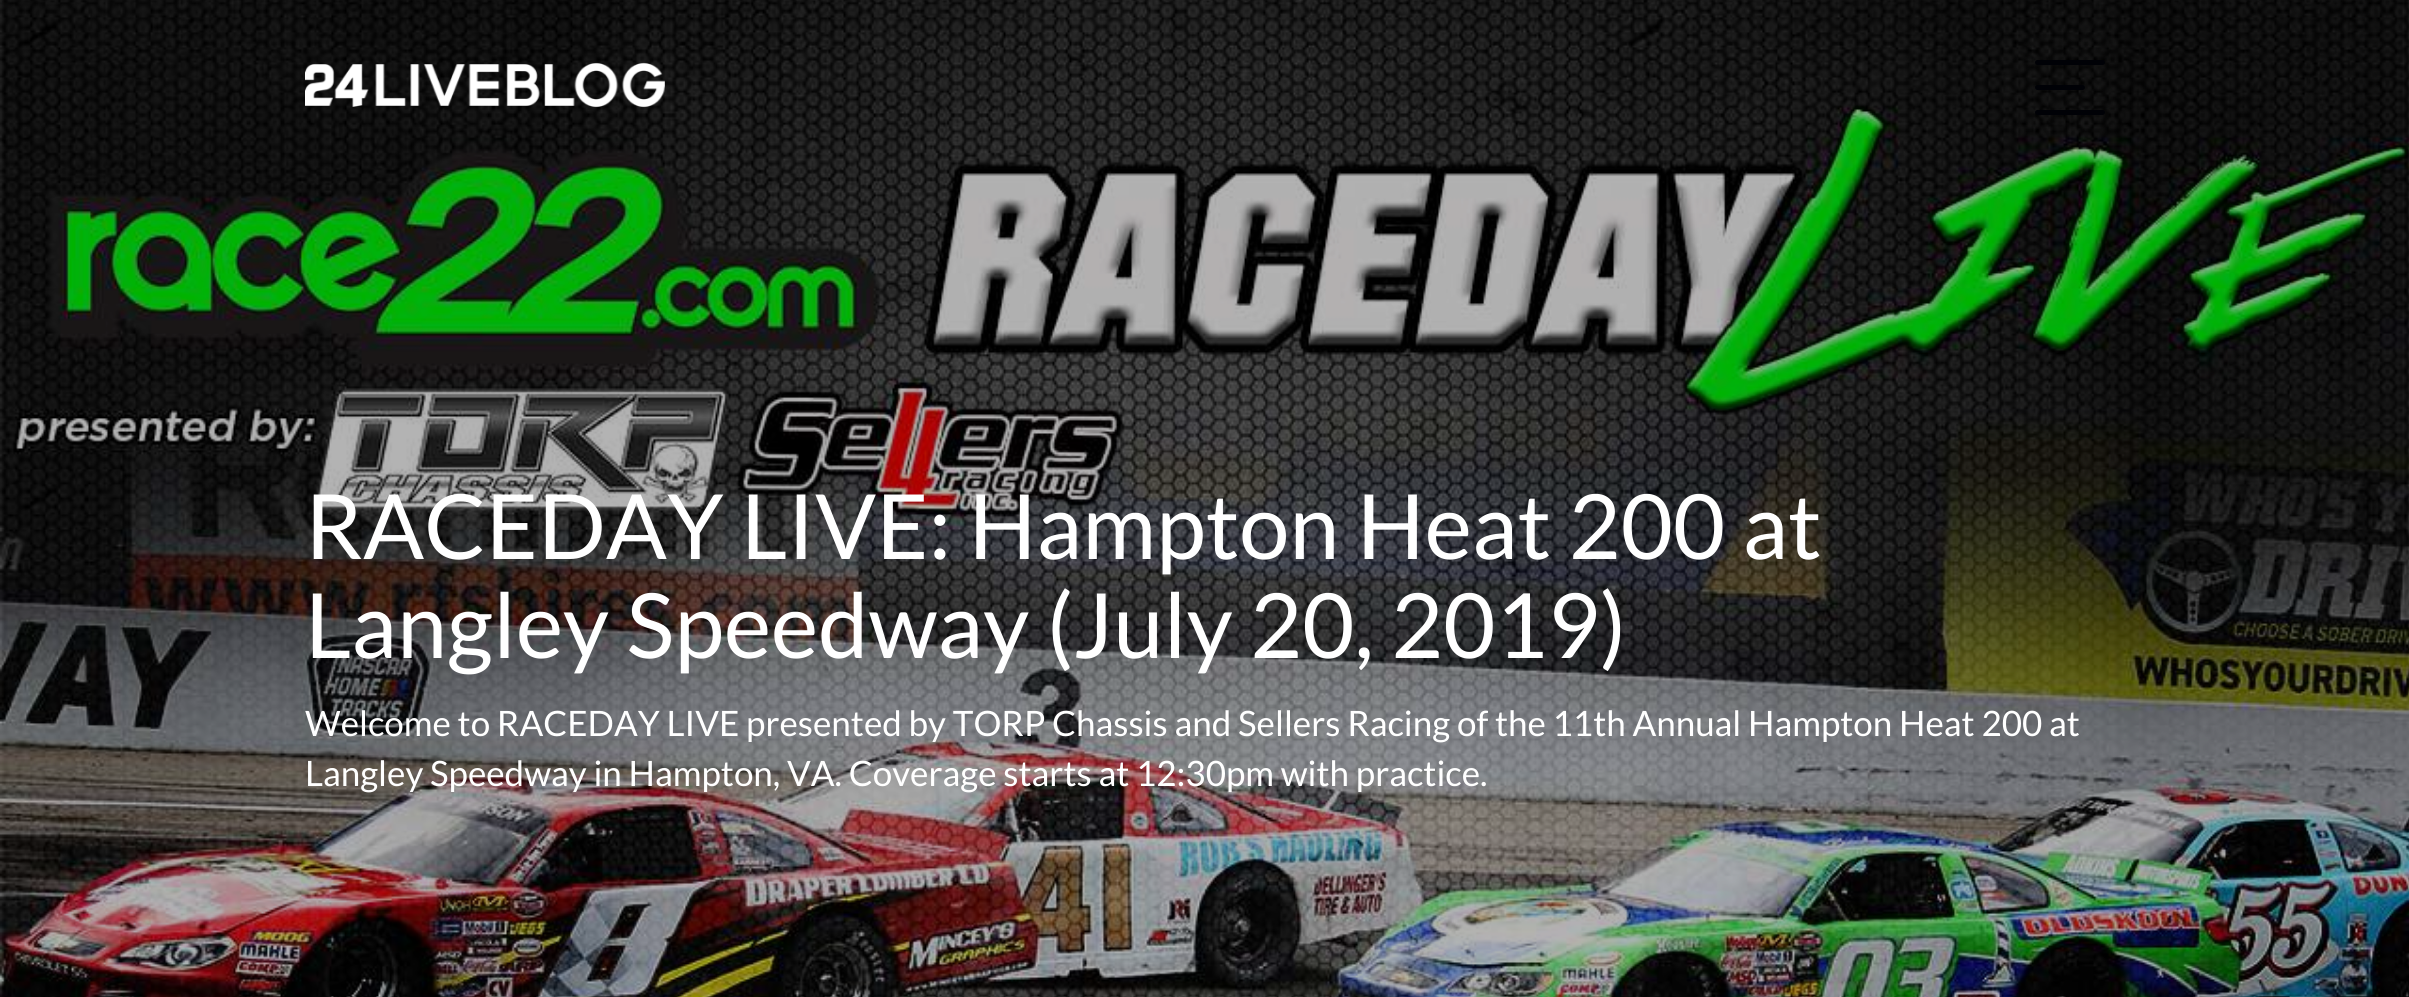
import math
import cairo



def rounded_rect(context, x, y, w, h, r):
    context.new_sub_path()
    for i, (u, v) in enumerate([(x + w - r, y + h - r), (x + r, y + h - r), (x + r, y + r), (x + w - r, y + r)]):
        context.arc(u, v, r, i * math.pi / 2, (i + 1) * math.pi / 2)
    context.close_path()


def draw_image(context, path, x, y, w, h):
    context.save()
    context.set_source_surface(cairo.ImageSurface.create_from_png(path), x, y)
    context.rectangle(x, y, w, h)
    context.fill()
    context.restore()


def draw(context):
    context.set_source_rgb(1, 1, 1)
    context.paint()
    draw_image(context, "images/2.png", 0, 0, 2409, 997)
    draw_image(context, "images/1.png", 305, 62, 360, 46)
    context.set_source_rgb(0, 1 / 255, 6 / 255)
    rounded_rect(context, 2035, 60, 70, 5, 2.5)
    context.fill()
    rounded_rect(context, 2035, 85, 50, 5, 2.5)
    context.fill()
    rounded_rect(context, 2035, 110, 70, 5, 2.5)
    context.fill()
    context.select_font_face("Lato")
    context.set_font_size(90)
    context.set_source_rgb(1, 1, 1)
    context.move_to(305, 559)
    context.show_text("RACEDAY LIVE: Hampton Heat 200 at")
    context.move_to(305, 658)
    context.show_text("Langley Speedway (July 20, 2019)")
    context.set_font_size(35)
    context.move_to(305, 736)
    context.show_text("Welcome to RACEDAY LIVE presented by TORP Chassis and Sellers Racing of the 11th Annual Hampton Heat 200 at")
    context.move_to(305, 786)
    context.show_text("Langley Speedway in Hampton, VA. Coverage starts at 12:30pm with practice.")


surface = cairo.ImageSurface(cairo.Format.RGB24, 2409, 997)
context = cairo.Context(surface)
options = cairo.FontOptions()
options.set_hint_metrics(cairo.HintMetrics.OFF)
options.set_hint_style(cairo.HintStyle.NONE)
context.set_font_options(options)
context.set_miter_limit(4)
draw(context)
surface.write_to_png("out.png")
